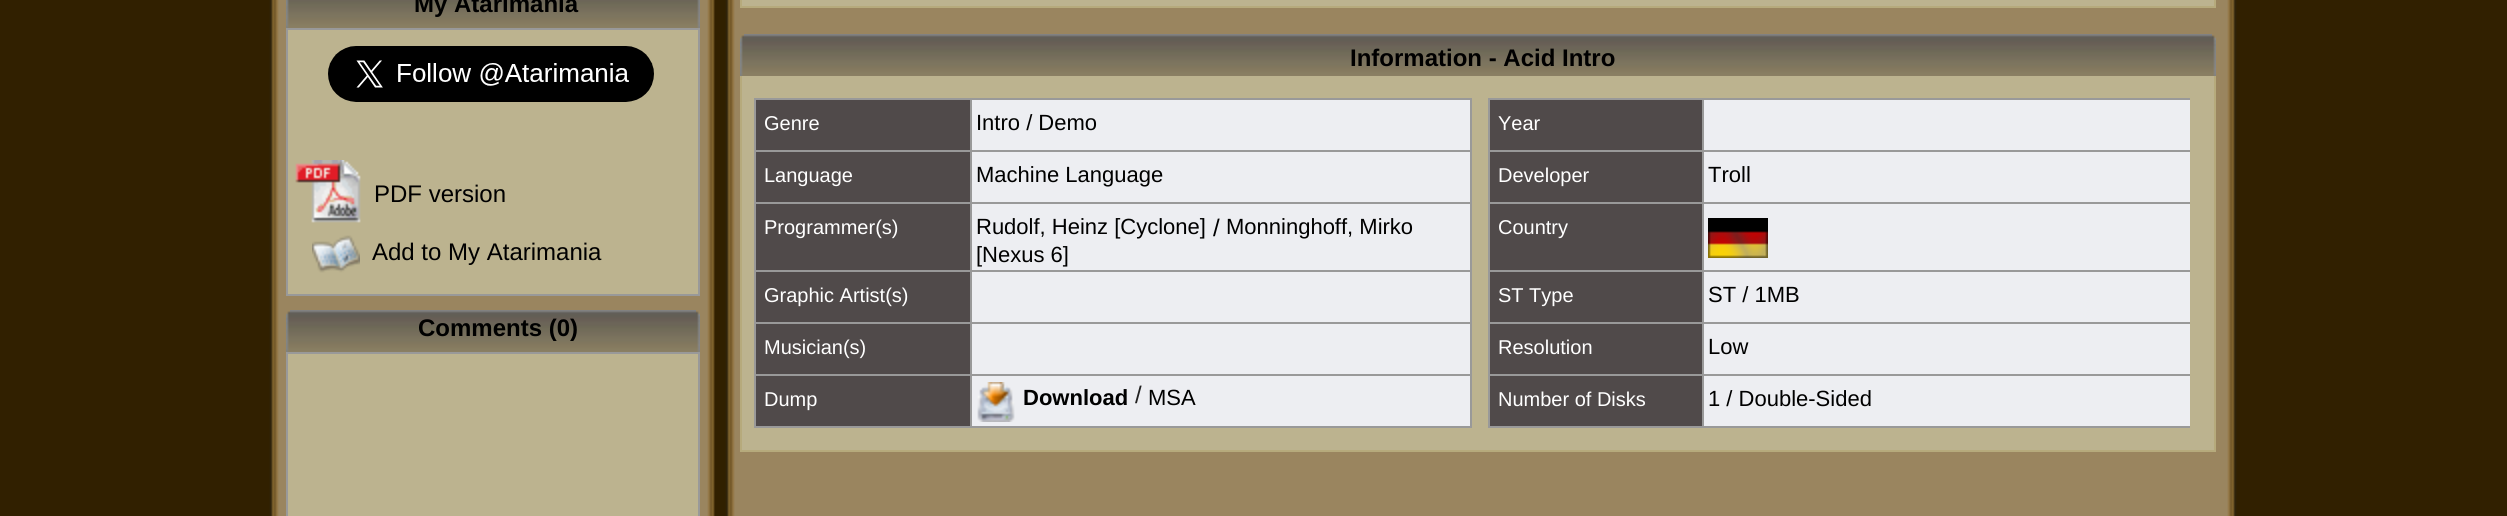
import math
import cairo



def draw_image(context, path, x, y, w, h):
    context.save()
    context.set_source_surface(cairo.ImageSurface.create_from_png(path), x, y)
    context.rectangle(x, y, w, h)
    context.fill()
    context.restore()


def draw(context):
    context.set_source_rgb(49 / 255, 32 / 255, 0)
    context.paint()
    draw_image(context, "images/1.png", 248, 0, 2010, 516)
    draw_image(context, "images/2.png", 286, 0, 4, 28)
    draw_image(context, "images/3.png", 290, 0, 406, 28)
    draw_image(context, "images/4.png", 696, 0, 4, 28)
    context.set_source_rgb(188 / 255, 179 / 255, 143 / 255)
    context.rectangle(287, 29, 412, 266)
    context.fill_preserve()
    context.set_source_rgb(153 / 255, 153 / 255, 153 / 255)
    context.stroke()
    draw_image(context, "images/5.png", 328, 46, 326, 56)
    draw_image(context, "images/6.png", 295, 160, 66, 63)
    draw_image(context, "images/7.png", 312, 235, 48, 38)
    draw_image(context, "images/8.png", 286, 311, 4, 41)
    draw_image(context, "images/9.png", 290, 310, 406, 42)
    draw_image(context, "images/10.png", 696, 311, 4, 41)
    context.set_source_rgb(188 / 255, 179 / 255, 143 / 255)
    context.rectangle(287, 353, 412, 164)
    context.fill_preserve()
    context.set_source_rgb(153 / 255, 153 / 255, 153 / 255)
    context.stroke()
    context.set_source_rgb(188 / 255, 179 / 255, 143 / 255)
    context.rectangle(740, 0, 1476, 6)
    context.fill()
    context.set_source_rgb(182 / 255, 170 / 255, 124 / 255)
    context.rectangle(2214, 0, 2, 8)
    context.fill()
    context.rectangle(740, 6, 1476, 2)
    context.fill()
    context.rectangle(740, 0, 2, 8)
    context.fill()
    draw_image(context, "images/8.png", 740, 35, 4, 41)
    draw_image(context, "images/11.png", 744, 34, 1468, 42)
    draw_image(context, "images/10.png", 2212, 35, 4, 41)
    context.set_source_rgb(188 / 255, 179 / 255, 143 / 255)
    context.rectangle(742, 76, 1472, 374)
    context.fill()
    context.set_source_rgb(182 / 255, 170 / 255, 124 / 255)
    context.rectangle(2214, 76, 2, 376)
    context.fill()
    context.rectangle(740, 450, 1476, 2)
    context.fill()
    context.rectangle(740, 76, 2, 376)
    context.fill()
    context.set_source_rgb(80 / 255, 74 / 255, 74 / 255)
    context.rectangle(756, 100, 214, 50)
    context.fill()
    context.set_source_rgb(153 / 255, 153 / 255, 153 / 255)
    context.rectangle(970, 98, 502, 2)
    context.fill()
    context.rectangle(970, 150, 502, 2)
    context.fill()
    context.rectangle(970, 202, 502, 2)
    context.fill()
    context.rectangle(970, 270, 502, 2)
    context.fill()
    context.rectangle(970, 322, 502, 2)
    context.fill()
    context.rectangle(970, 374, 502, 2)
    context.fill()
    context.rectangle(754, 426, 718, 2)
    context.fill()
    context.rectangle(970, 374, 2, 54)
    context.fill()
    context.rectangle(754, 374, 218, 2)
    context.fill()
    context.rectangle(970, 322, 2, 54)
    context.fill()
    context.rectangle(754, 322, 218, 2)
    context.fill()
    context.rectangle(970, 270, 2, 54)
    context.fill()
    context.rectangle(754, 270, 218, 2)
    context.fill()
    context.rectangle(970, 202, 2, 70)
    context.fill()
    context.rectangle(754, 202, 218, 2)
    context.fill()
    context.rectangle(970, 150, 2, 54)
    context.fill()
    context.rectangle(754, 150, 218, 2)
    context.fill()
    context.rectangle(970, 98, 2, 54)
    context.fill()
    context.rectangle(754, 98, 218, 2)
    context.fill()
    context.rectangle(754, 374, 2, 54)
    context.fill()
    context.rectangle(754, 322, 2, 54)
    context.fill()
    context.rectangle(754, 270, 2, 54)
    context.fill()
    context.rectangle(754, 202, 2, 70)
    context.fill()
    context.rectangle(754, 150, 2, 54)
    context.fill()
    context.rectangle(754, 98, 2, 54)
    context.fill()
    context.set_source_rgb(237 / 255, 238 / 255, 242 / 255)
    context.rectangle(972, 100, 498, 50)
    context.fill()
    context.set_source_rgb(153 / 255, 153 / 255, 153 / 255)
    context.rectangle(1470, 374, 2, 54)
    context.fill()
    context.rectangle(1470, 322, 2, 54)
    context.fill()
    context.rectangle(1470, 270, 2, 54)
    context.fill()
    context.rectangle(1470, 202, 2, 70)
    context.fill()
    context.rectangle(1470, 150, 2, 54)
    context.fill()
    context.rectangle(1470, 98, 2, 54)
    context.fill()
    context.set_source_rgb(80 / 255, 74 / 255, 74 / 255)
    context.rectangle(1490, 100, 212, 50)
    context.fill()
    context.set_source_rgb(153 / 255, 153 / 255, 153 / 255)
    context.rectangle(1702, 98, 488, 2)
    context.fill()
    context.rectangle(1702, 150, 488, 2)
    context.fill()
    context.rectangle(1702, 202, 488, 2)
    context.fill()
    context.rectangle(1702, 270, 488, 2)
    context.fill()
    context.rectangle(1702, 322, 488, 2)
    context.fill()
    context.rectangle(1702, 374, 488, 2)
    context.fill()
    context.rectangle(1488, 426, 702, 2)
    context.fill()
    context.rectangle(1702, 374, 2, 54)
    context.fill()
    context.rectangle(1488, 374, 216, 2)
    context.fill()
    context.rectangle(1702, 322, 2, 54)
    context.fill()
    context.rectangle(1488, 322, 216, 2)
    context.fill()
    context.rectangle(1702, 270, 2, 54)
    context.fill()
    context.rectangle(1488, 270, 216, 2)
    context.fill()
    context.rectangle(1702, 202, 2, 70)
    context.fill()
    context.rectangle(1488, 202, 216, 2)
    context.fill()
    context.rectangle(1702, 150, 2, 54)
    context.fill()
    context.rectangle(1488, 150, 216, 2)
    context.fill()
    context.rectangle(1702, 98, 2, 54)
    context.fill()
    context.rectangle(1488, 98, 216, 2)
    context.fill()
    context.rectangle(1488, 374, 2, 54)
    context.fill()
    context.rectangle(1488, 322, 2, 54)
    context.fill()
    context.rectangle(1488, 270, 2, 54)
    context.fill()
    context.rectangle(1488, 202, 2, 70)
    context.fill()
    context.rectangle(1488, 150, 2, 54)
    context.fill()
    context.rectangle(1488, 98, 2, 54)
    context.fill()
    context.set_source_rgb(237 / 255, 238 / 255, 242 / 255)
    context.rectangle(1704, 100, 486, 50)
    context.fill()
    context.set_source_rgb(80 / 255, 74 / 255, 74 / 255)
    context.rectangle(756, 152, 214, 50)
    context.fill()
    context.set_source_rgb(237 / 255, 238 / 255, 242 / 255)
    context.rectangle(972, 152, 498, 50)
    context.fill()
    context.set_source_rgb(80 / 255, 74 / 255, 74 / 255)
    context.rectangle(1490, 152, 212, 50)
    context.fill()
    context.set_source_rgb(237 / 255, 238 / 255, 242 / 255)
    context.rectangle(1704, 152, 486, 50)
    context.fill()
    context.set_source_rgb(80 / 255, 74 / 255, 74 / 255)
    context.rectangle(756, 204, 214, 66)
    context.fill()
    context.set_source_rgb(237 / 255, 238 / 255, 242 / 255)
    context.rectangle(972, 204, 498, 66)
    context.fill()
    context.set_source_rgb(80 / 255, 74 / 255, 74 / 255)
    context.rectangle(1490, 204, 212, 66)
    context.fill()
    context.set_source_rgb(237 / 255, 238 / 255, 242 / 255)
    context.rectangle(1704, 204, 486, 66)
    context.fill()
    draw_image(context, "images/12.png", 1708, 218, 60, 40)
    context.set_source_rgb(80 / 255, 74 / 255, 74 / 255)
    context.rectangle(756, 272, 214, 50)
    context.fill()
    context.set_source_rgb(237 / 255, 238 / 255, 242 / 255)
    context.rectangle(972, 272, 498, 50)
    context.fill()
    context.set_source_rgb(80 / 255, 74 / 255, 74 / 255)
    context.rectangle(1490, 272, 212, 50)
    context.fill()
    context.set_source_rgb(237 / 255, 238 / 255, 242 / 255)
    context.rectangle(1704, 272, 486, 50)
    context.fill()
    context.set_source_rgb(80 / 255, 74 / 255, 74 / 255)
    context.rectangle(756, 324, 214, 50)
    context.fill()
    context.set_source_rgb(237 / 255, 238 / 255, 242 / 255)
    context.rectangle(972, 324, 498, 50)
    context.fill()
    context.set_source_rgb(80 / 255, 74 / 255, 74 / 255)
    context.rectangle(1490, 324, 212, 50)
    context.fill()
    context.set_source_rgb(237 / 255, 238 / 255, 242 / 255)
    context.rectangle(1704, 324, 486, 50)
    context.fill()
    context.set_source_rgb(80 / 255, 74 / 255, 74 / 255)
    context.rectangle(756, 376, 214, 50)
    context.fill()
    context.set_source_rgb(237 / 255, 238 / 255, 242 / 255)
    context.rectangle(972, 376, 498, 50)
    context.fill()
    draw_image(context, "images/13.png", 977, 382, 38, 40)
    context.set_source_rgb(80 / 255, 74 / 255, 74 / 255)
    context.rectangle(1490, 376, 212, 50)
    context.fill()
    context.set_source_rgb(237 / 255, 238 / 255, 242 / 255)
    context.rectangle(1704, 376, 486, 50)
    context.fill()
    context.select_font_face("Liberation Sans", cairo.FontSlant.NORMAL, cairo.FontWeight.BOLD)
    context.set_font_size(24)
    context.set_source_rgb(0, 0, 0)
    context.move_to(414, 12)
    context.show_text("My Atarimania")
    context.select_font_face("Liberation Sans")
    context.move_to(374, 202)
    context.show_text("PDF version")
    context.move_to(372, 260)
    context.show_text("Add to My Atarimania")
    context.select_font_face("Liberation Sans", cairo.FontSlant.NORMAL, cairo.FontWeight.BOLD)
    context.move_to(418, 336)
    context.show_text("Comments (0)")
    context.move_to(1350, 66)
    context.show_text("Information - Acid Intro")
    context.select_font_face("Liberation Sans")
    context.set_font_size(20)
    context.set_source_rgb(1, 1, 1)
    context.move_to(764, 130)
    context.show_text("Genre")
    context.set_font_size(22)
    context.set_source_rgb(0, 0, 0)
    context.move_to(976, 130)
    context.show_text("Intro / Demo")
    context.set_font_size(20)
    context.set_source_rgb(1, 1, 1)
    context.move_to(1498, 130)
    context.show_text("Year")
    context.move_to(764, 182)
    context.show_text("Language")
    context.set_font_size(22)
    context.set_source_rgb(0, 0, 0)
    context.move_to(976, 182)
    context.show_text("Machine Language")
    context.set_font_size(20)
    context.set_source_rgb(1, 1, 1)
    context.move_to(1498, 182)
    context.show_text("Developer")
    context.set_font_size(22)
    context.set_source_rgb(0, 0, 0)
    context.move_to(1708, 182)
    context.show_text("Troll")
    context.set_font_size(20)
    context.set_source_rgb(1, 1, 1)
    context.move_to(764, 234)
    context.show_text("Programmer(s)")
    context.set_font_size(22)
    context.set_source_rgb(0, 0, 0)
    context.move_to(976, 234)
    context.show_text("Rudolf, Heinz [Cyclone]")
    context.set_font_size(24)
    context.move_to(1213, 236)
    context.show_text("/")
    context.set_font_size(22)
    context.move_to(1226, 234)
    context.show_text("Monninghoff, Mirko")
    context.move_to(976, 262)
    context.show_text("[Nexus 6]")
    context.set_font_size(20)
    context.set_source_rgb(1, 1, 1)
    context.move_to(1498, 234)
    context.show_text("Country")
    context.move_to(764, 302)
    context.show_text("Graphic Artist(s)")
    context.move_to(1498, 302)
    context.show_text("ST Type")
    context.set_font_size(22)
    context.set_source_rgb(0, 0, 0)
    context.move_to(1708, 302)
    context.show_text("ST / 1MB")
    context.set_font_size(20)
    context.set_source_rgb(1, 1, 1)
    context.move_to(764, 354)
    context.show_text("Musician(s)")
    context.move_to(1498, 354)
    context.show_text("Resolution")
    context.set_font_size(22)
    context.set_source_rgb(0, 0, 0)
    context.move_to(1708, 354)
    context.show_text("Low")
    context.set_font_size(20)
    context.set_source_rgb(1, 1, 1)
    context.move_to(764, 406)
    context.show_text("Dump")
    context.select_font_face("Liberation Sans", cairo.FontSlant.NORMAL, cairo.FontWeight.BOLD)
    context.set_font_size(22)
    context.set_source_rgb(0, 0, 0)
    context.move_to(1023, 405)
    context.show_text("Download")
    context.select_font_face("Liberation Sans")
    context.set_font_size(24)
    context.set_source_rgb(34 / 255, 34 / 255, 34 / 255)
    context.move_to(1135, 403)
    context.show_text("/")
    context.set_font_size(22)
    context.set_source_rgb(0, 0, 0)
    context.move_to(1148, 405)
    context.show_text("MSA")
    context.set_font_size(20)
    context.set_source_rgb(1, 1, 1)
    context.move_to(1498, 406)
    context.show_text("Number of Disks")
    context.set_font_size(22)
    context.set_source_rgb(0, 0, 0)
    context.move_to(1708, 406)
    context.show_text("1 / Double-Sided")


surface = cairo.ImageSurface(cairo.Format.RGB24, 2507, 516)
context = cairo.Context(surface)
options = cairo.FontOptions()
options.set_hint_metrics(cairo.HintMetrics.OFF)
options.set_hint_style(cairo.HintStyle.NONE)
context.set_font_options(options)
context.set_miter_limit(4)
draw(context)
surface.write_to_png("out.png")
